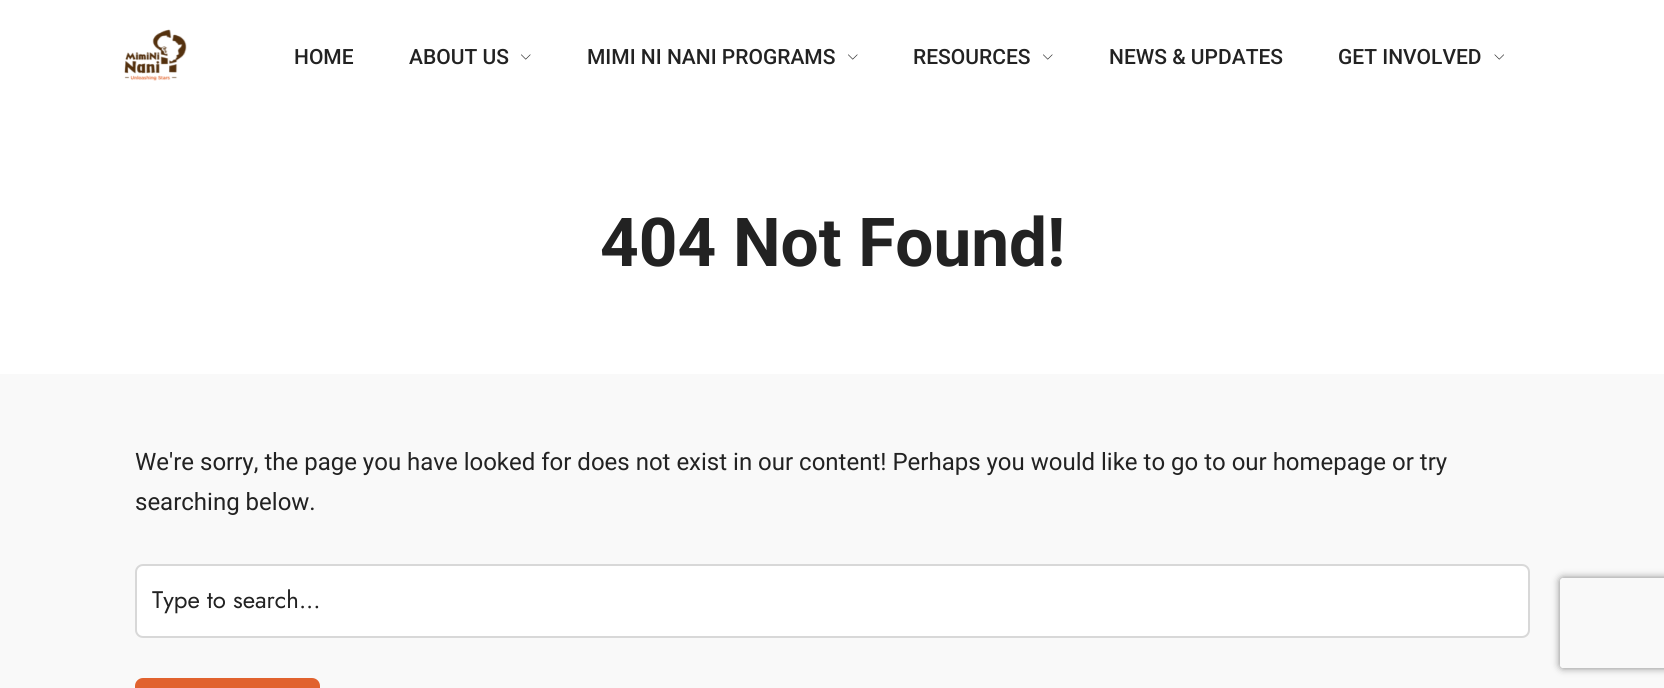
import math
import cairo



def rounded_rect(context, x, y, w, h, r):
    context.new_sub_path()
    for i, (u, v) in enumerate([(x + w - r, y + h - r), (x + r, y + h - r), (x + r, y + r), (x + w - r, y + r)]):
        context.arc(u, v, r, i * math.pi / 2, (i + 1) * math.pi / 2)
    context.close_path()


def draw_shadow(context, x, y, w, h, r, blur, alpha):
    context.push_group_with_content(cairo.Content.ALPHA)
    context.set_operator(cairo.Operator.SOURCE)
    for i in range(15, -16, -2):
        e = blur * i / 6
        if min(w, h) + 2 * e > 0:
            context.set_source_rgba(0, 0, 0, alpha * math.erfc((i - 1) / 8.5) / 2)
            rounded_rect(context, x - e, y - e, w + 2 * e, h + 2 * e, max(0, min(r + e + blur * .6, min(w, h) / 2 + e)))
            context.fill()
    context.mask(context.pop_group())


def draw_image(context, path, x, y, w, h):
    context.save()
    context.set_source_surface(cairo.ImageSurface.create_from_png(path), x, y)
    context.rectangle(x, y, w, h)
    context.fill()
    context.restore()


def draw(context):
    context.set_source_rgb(249 / 255, 249 / 255, 249 / 255)
    context.paint()
    context.set_source_rgb(1, 1, 1)
    context.rectangle(0, 0, 1664, 374)
    context.fill()
    draw_image(context, "images/1.png", 124, 29, 63, 52)
    draw_image(context, "images/2.png", 521, 54, 10, 6)
    draw_image(context, "images/2.png", 848, 54, 10, 6)
    draw_image(context, "images/2.png", 1043, 54, 10, 6)
    draw_image(context, "images/3.png", 1494, 54, 10, 6)
    rounded_rect(context, 136, 565, 1393, 72, 7)
    context.fill_preserve()
    context.set_source_rgb(216 / 255, 216 / 255, 216 / 255)
    context.stroke()
    context.set_source_rgb(225 / 255, 98 / 255, 46 / 255)
    rounded_rect(context, 136.5, 679.5, 182, 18, 6.5)
    context.fill_preserve()
    context.set_line_width(3)
    context.stroke()
    context.save()
    context.set_fill_rule(cairo.FillRule.EVEN_ODD)
    context.new_path()
    context.move_to(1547, 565)
    context.line_to(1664, 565)
    context.line_to(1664, 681)
    context.line_to(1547, 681)
    context.close_path()
    context.move_to(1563, 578)
    context.line_to(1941, 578)
    context.curve_to(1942.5, 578, 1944, 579.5, 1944, 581)
    context.line_to(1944, 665)
    context.curve_to(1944, 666.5, 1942.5, 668, 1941, 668)
    context.line_to(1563, 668)
    context.curve_to(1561.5, 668, 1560, 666.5, 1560, 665)
    context.line_to(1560, 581)
    context.curve_to(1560, 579.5, 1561.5, 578, 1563, 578)
    context.close_path()
    context.clip()
    context.set_source_rgb(128 / 255, 128 / 255, 128 / 255)
    draw_shadow(context, 1560, 578, 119, 90, 3, 4, 1)
    context.restore()
    context.select_font_face("Roboto Medium")
    context.set_font_size(21)
    context.set_source_rgb(34 / 255, 34 / 255, 34 / 255)
    context.move_to(294, 64)
    context.show_text("HOME")
    context.move_to(409, 64)
    context.show_text("ABOUT US")
    context.move_to(587, 64)
    context.show_text("MIMI NI NANI PROGRAMS")
    context.move_to(913, 64)
    context.show_text("RESOURCES")
    context.move_to(1109, 64)
    context.show_text("NEWS & UPDATES")
    context.move_to(1338, 64)
    context.show_text("GET INVOLVED")
    context.select_font_face("Roboto", cairo.FontSlant.NORMAL, cairo.FontWeight.BOLD)
    context.set_font_size(67.5)
    context.move_to(600, 266)
    context.show_text("404 Not Found!")
    context.select_font_face("Roboto")
    context.set_font_size(24)
    context.move_to(135, 470)
    context.show_text("We're sorry, the page you have looked for does not exist in our content! Perhaps you would like to go to our homepage or try")
    context.move_to(135, 510)
    context.show_text("searching below.")
    context.select_font_face("Jost")
    context.move_to(152, 608)
    context.show_text("Type to search...")


surface = cairo.ImageSurface(cairo.Format.RGB24, 1664, 688)
context = cairo.Context(surface)
options = cairo.FontOptions()
options.set_hint_metrics(cairo.HintMetrics.OFF)
options.set_hint_style(cairo.HintStyle.NONE)
context.set_font_options(options)
context.set_miter_limit(4)
draw(context)
surface.write_to_png("out.png")
